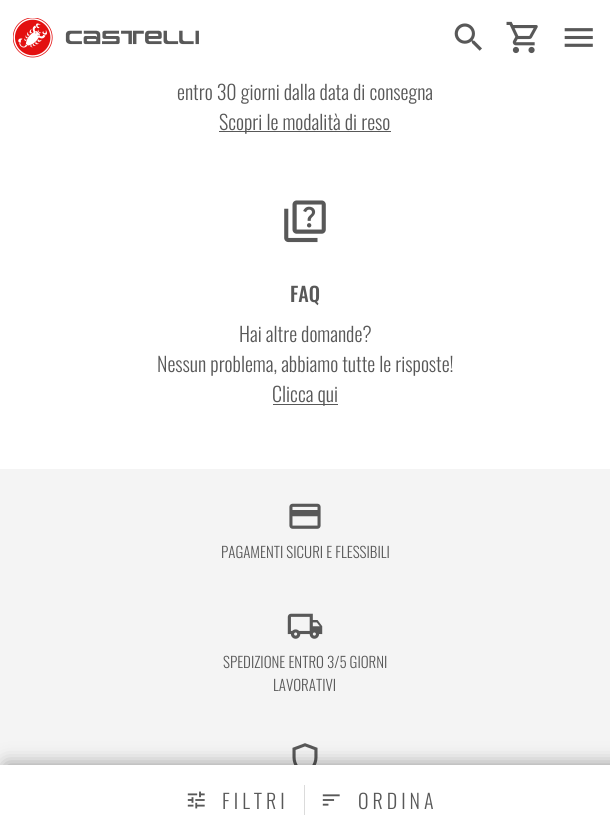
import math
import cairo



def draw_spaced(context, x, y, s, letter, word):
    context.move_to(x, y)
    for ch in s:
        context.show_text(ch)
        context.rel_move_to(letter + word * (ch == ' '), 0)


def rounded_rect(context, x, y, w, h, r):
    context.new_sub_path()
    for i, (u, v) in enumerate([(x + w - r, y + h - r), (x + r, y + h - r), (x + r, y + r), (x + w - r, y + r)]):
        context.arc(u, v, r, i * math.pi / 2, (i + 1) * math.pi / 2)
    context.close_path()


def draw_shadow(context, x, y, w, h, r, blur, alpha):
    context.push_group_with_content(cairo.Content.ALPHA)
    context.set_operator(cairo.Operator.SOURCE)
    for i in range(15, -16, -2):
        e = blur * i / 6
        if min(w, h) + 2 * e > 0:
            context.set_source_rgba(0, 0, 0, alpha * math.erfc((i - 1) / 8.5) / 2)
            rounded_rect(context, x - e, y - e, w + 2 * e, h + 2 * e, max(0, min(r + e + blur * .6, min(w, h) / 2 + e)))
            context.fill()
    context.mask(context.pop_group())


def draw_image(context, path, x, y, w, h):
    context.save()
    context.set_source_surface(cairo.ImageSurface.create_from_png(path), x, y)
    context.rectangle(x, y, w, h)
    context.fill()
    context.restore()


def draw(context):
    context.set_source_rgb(1, 1, 1)
    context.paint()
    draw_image(context, "images/1.png", 13, 18, 186, 40)
    draw_image(context, "images/2.png", 454, 23, 28, 28)
    draw_image(context, "images/3.png", 506, 21, 32, 33)
    draw_image(context, "images/4.png", 564, 28, 29, 19)
    context.set_source_rgb(88 / 255, 88 / 255, 88 / 255)
    context.rectangle(219, 131, 172, 1)
    context.fill()
    draw_image(context, "images/5.png", 284, 200, 42, 43)
    context.rectangle(273, 404, 65, 1)
    context.fill()
    context.set_source_rgb(244 / 255, 244 / 255, 244 / 255)
    context.rectangle(0, 469, 610, 296)
    context.fill()
    draw_image(context, "images/6.png", 289, 503, 32, 26)
    draw_image(context, "images/7.png", 287, 613, 36, 26)
    draw_image(context, "images/8.png", 292, 743, 26, 22)
    context.set_source_rgb(0, 0, 0)
    draw_shadow(context, 6, 765, 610, 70, 0, 9.5, 0.4)
    context.set_source_rgb(1, 1, 1)
    context.rectangle(0, 765, 610, 69)
    context.fill()
    context.set_source_rgb(219 / 255, 219 / 255, 219 / 255)
    context.rectangle(304, 785, 1, 30)
    context.fill()
    draw_image(context, "images/9.png", 187, 791, 18, 18)
    draw_image(context, "images/10.png", 322, 794, 18, 12)
    context.select_font_face("Oswald Light")
    context.set_font_size(20)
    context.set_source_rgb(88 / 255, 88 / 255, 88 / 255)
    context.move_to(177, 100)
    context.show_text("entro 30 giorni dalla data di consegna")
    context.move_to(219, 130)
    context.show_text("Scopri le modalità di reso")
    context.select_font_face("Oswald Medium")
    context.move_to(290, 302)
    context.show_text("FAQ")
    context.select_font_face("Oswald Light")
    context.move_to(239, 342)
    context.show_text("Hai altre domande?")
    context.move_to(157, 372)
    context.show_text("Nessun problema, abbiamo tutte le risposte!")
    context.move_to(272, 402)
    context.show_text("Clicca qui")
    context.set_font_size(15)
    context.move_to(221, 558)
    context.show_text("PAGAMENTI SICURI E FLESSIBILI")
    context.move_to(223, 668)
    context.show_text("SPEDIZIONE ENTRO 3/5 GIORNI")
    context.move_to(273, 691)
    context.show_text("LAVORATIVI")
    context.set_font_size(20)
    draw_spaced(context, 222, 809, "FILTRI", 4, 0)
    draw_spaced(context, 358, 809, "ORDINA", 4, 0)


surface = cairo.ImageSurface(cairo.Format.RGB24, 610, 834)
context = cairo.Context(surface)
options = cairo.FontOptions()
options.set_hint_metrics(cairo.HintMetrics.OFF)
options.set_hint_style(cairo.HintStyle.NONE)
context.set_font_options(options)
context.set_miter_limit(4)
draw(context)
surface.write_to_png("out.png")
